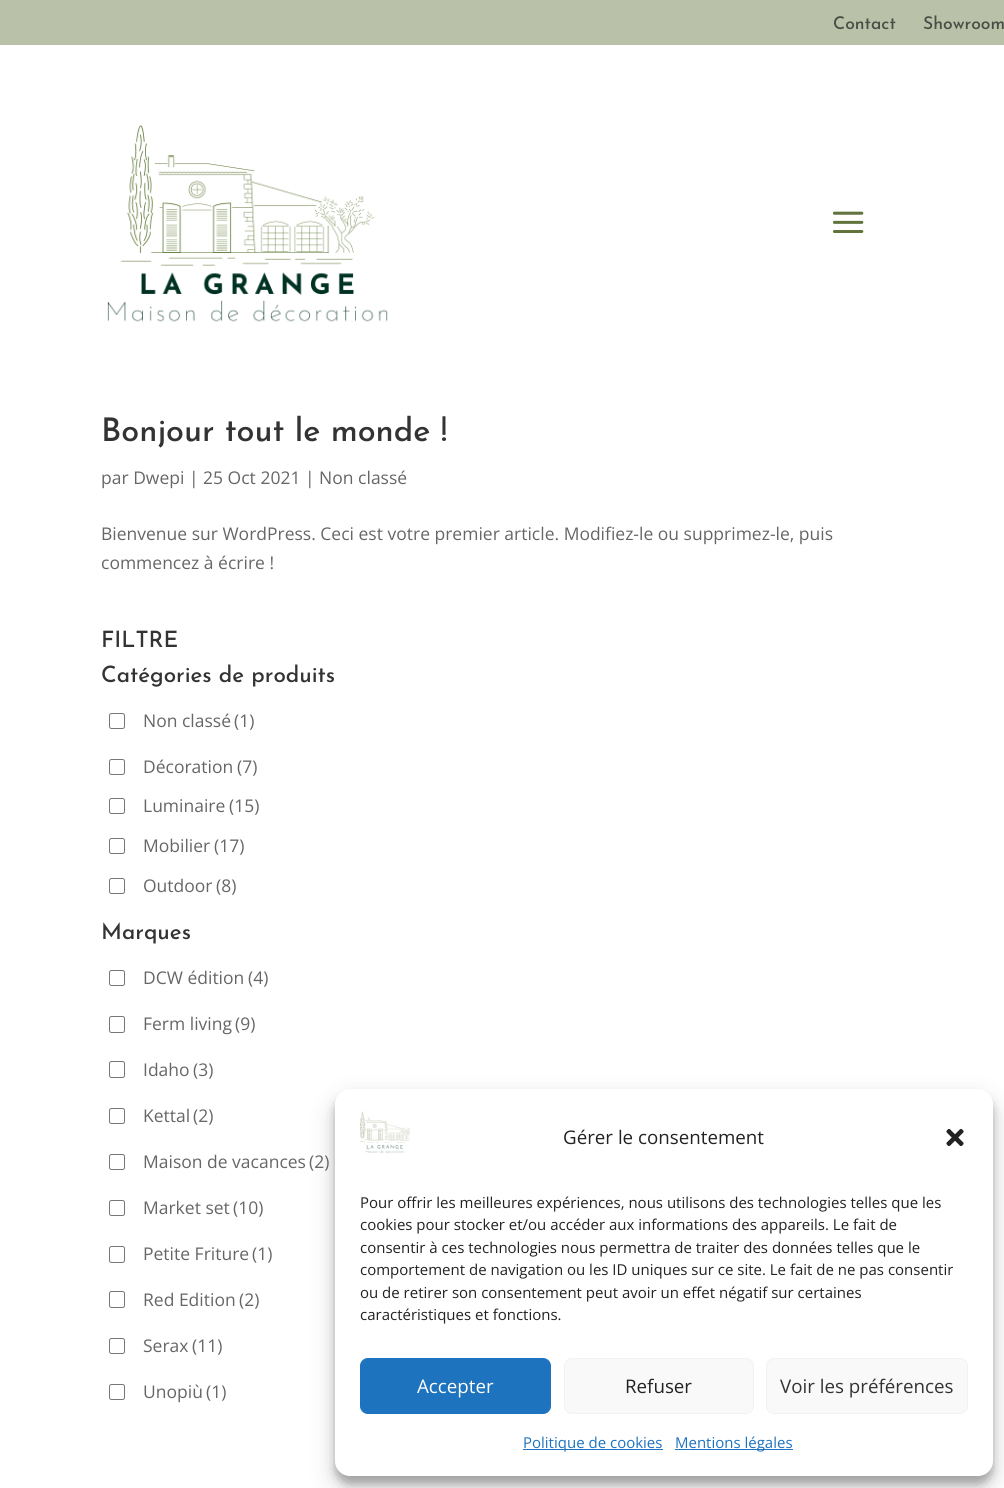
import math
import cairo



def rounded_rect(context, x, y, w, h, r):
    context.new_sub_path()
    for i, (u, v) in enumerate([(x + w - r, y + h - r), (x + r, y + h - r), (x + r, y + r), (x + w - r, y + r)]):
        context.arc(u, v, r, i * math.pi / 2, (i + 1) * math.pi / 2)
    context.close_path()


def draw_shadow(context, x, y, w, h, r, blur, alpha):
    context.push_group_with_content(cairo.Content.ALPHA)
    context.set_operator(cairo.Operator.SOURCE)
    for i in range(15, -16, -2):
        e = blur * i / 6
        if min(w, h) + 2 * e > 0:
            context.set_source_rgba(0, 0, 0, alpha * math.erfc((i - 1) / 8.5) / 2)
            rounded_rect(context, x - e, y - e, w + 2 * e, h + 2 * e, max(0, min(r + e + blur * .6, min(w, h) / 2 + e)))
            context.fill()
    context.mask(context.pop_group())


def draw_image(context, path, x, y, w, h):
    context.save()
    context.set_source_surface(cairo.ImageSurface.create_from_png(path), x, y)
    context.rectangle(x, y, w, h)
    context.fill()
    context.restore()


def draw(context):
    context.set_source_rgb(1, 1, 1)
    context.paint()
    context.set_source_rgb(186 / 255, 193 / 255, 169 / 255)
    context.rectangle(0, 0, 1004, 45)
    context.fill()
    draw_image(context, "images/1.png", 107, 125, 281, 197)
    draw_image(context, "images/2.png", 832, 211, 32, 22)
    rounded_rect(context, 109.5, 713.5, 15, 15, 2)
    context.set_source_rgb(118 / 255, 118 / 255, 118 / 255)
    context.set_line_width(1)
    context.stroke()
    rounded_rect(context, 109.5, 759.5, 15, 15, 2)
    context.stroke()
    rounded_rect(context, 109.5, 798.5, 15, 15, 2)
    context.stroke()
    rounded_rect(context, 109.5, 838.5, 15, 15, 2)
    context.stroke()
    rounded_rect(context, 109.5, 878.5, 15, 15, 2)
    context.stroke()
    rounded_rect(context, 109.5, 970.5, 15, 15, 2)
    context.stroke()
    rounded_rect(context, 109.5, 1016.5, 15, 16, 2)
    context.stroke()
    rounded_rect(context, 109.5, 1061.5, 15, 16, 2)
    context.stroke()
    rounded_rect(context, 109.5, 1108.5, 15, 15, 2)
    context.stroke()
    rounded_rect(context, 109.5, 1154.5, 15, 15, 2)
    context.stroke()
    rounded_rect(context, 109.5, 1200.5, 15, 15, 2)
    context.stroke()
    rounded_rect(context, 109.5, 1246.5, 15, 16, 2)
    context.stroke()
    rounded_rect(context, 109.5, 1291.5, 15, 16, 2)
    context.stroke()
    rounded_rect(context, 109.5, 1338.5, 15, 15, 2)
    context.stroke()
    rounded_rect(context, 109.5, 1384.5, 15, 15, 2)
    context.stroke()
    context.set_source_rgb(0, 0, 0)
    draw_shadow(context, 335, 1096, 658, 388, 15, 4, 0.23)
    draw_shadow(context, 335, 1101, 658, 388, 15, 12.5, 0.19)
    context.set_source_rgb(1, 1, 1)
    rounded_rect(context, 335, 1089, 658, 387, 15)
    context.fill()
    draw_image(context, "images/3.png", 360, 1111, 50, 42)
    draw_image(context, "images/4.png", 946, 1128, 18, 18)
    context.set_source_rgb(30 / 255, 115 / 255, 190 / 255)
    rounded_rect(context, 360.5, 1358.5, 190, 55, 7.5)
    context.fill_preserve()
    context.stroke()
    context.set_source_rgb(249 / 255, 249 / 255, 249 / 255)
    rounded_rect(context, 564.5, 1358.5, 189, 55, 7.5)
    context.fill_preserve()
    context.set_source_rgb(242 / 255, 242 / 255, 242 / 255)
    context.stroke()
    context.set_source_rgb(249 / 255, 249 / 255, 249 / 255)
    rounded_rect(context, 766.5, 1358.5, 201, 55, 7.5)
    context.fill_preserve()
    context.set_source_rgb(242 / 255, 242 / 255, 242 / 255)
    context.stroke()
    context.set_source_rgb(30 / 255, 115 / 255, 190 / 255)
    context.rectangle(523, 1449, 140, 1)
    context.fill()
    context.rectangle(675, 1449, 118, 1)
    context.fill()
    context.select_font_face("Josefin Sans Thin")
    context.set_font_size(17.5)
    context.set_source_rgb(74 / 255, 77 / 255, 68 / 255)
    context.move_to(833, 29)
    context.show_text("Contact")
    context.move_to(923, 29)
    context.show_text("Showroom")
    context.set_font_size(32.5)
    context.set_source_rgb(51 / 255, 51 / 255, 51 / 255)
    context.move_to(101, 441)
    context.show_text("Bonjour tout le monde !")
    context.select_font_face("Open Sans")
    context.set_font_size(17.5)
    context.set_source_rgb(102 / 255, 102 / 255, 102 / 255)
    context.move_to(101, 484)
    context.show_text("par Dwepi | 25 Oct 2021 | Non classé")
    context.move_to(101, 540)
    context.show_text("Bienvenue sur WordPress. Ceci est votre premier article. Modifiez-le ou supprimez-le, puis")
    context.move_to(101, 569)
    context.show_text("commencez à écrire !")
    context.select_font_face("Josefin Sans Thin")
    context.set_font_size(22.5)
    context.set_source_rgb(51 / 255, 51 / 255, 51 / 255)
    context.move_to(101, 647)
    context.show_text("FILTRE")
    context.move_to(101, 682)
    context.show_text("Catégories de produits")
    context.select_font_face("Open Sans")
    context.set_font_size(17.5)
    context.set_source_rgb(102 / 255, 102 / 255, 102 / 255)
    context.move_to(143, 727)
    context.show_text("Non classé")
    context.move_to(234, 727)
    context.show_text("(1)")
    context.move_to(143, 773)
    context.show_text("Décoration")
    context.move_to(237, 773)
    context.show_text("(7)")
    context.move_to(143, 812)
    context.show_text("Luminaire")
    context.move_to(229, 812)
    context.show_text("(15)")
    context.move_to(143, 852)
    context.show_text("Mobilier")
    context.move_to(214, 852)
    context.show_text("(17)")
    context.move_to(143, 892)
    context.show_text("Outdoor")
    context.move_to(216, 892)
    context.show_text("(8)")
    context.select_font_face("Josefin Sans Thin")
    context.set_font_size(22.5)
    context.set_source_rgb(51 / 255, 51 / 255, 51 / 255)
    context.move_to(101, 939)
    context.show_text("Marques")
    context.select_font_face("Open Sans")
    context.set_font_size(17.5)
    context.set_source_rgb(102 / 255, 102 / 255, 102 / 255)
    context.move_to(143, 984)
    context.show_text("DCW édition")
    context.move_to(248, 984)
    context.show_text("(4)")
    context.move_to(143, 1030)
    context.show_text("Ferm living")
    context.move_to(235, 1030)
    context.show_text("(9)")
    context.move_to(143, 1076)
    context.show_text("Idaho")
    context.move_to(193, 1076)
    context.show_text("(3)")
    context.move_to(143, 1122)
    context.show_text("Kettal")
    context.move_to(193, 1122)
    context.show_text("(2)")
    context.move_to(143, 1168)
    context.show_text("Maison de vacances")
    context.move_to(309, 1168)
    context.show_text("(2)")
    context.move_to(143, 1214)
    context.show_text("Market set")
    context.move_to(233, 1214)
    context.show_text("(10)")
    context.move_to(143, 1260)
    context.show_text("Petite Friture")
    context.move_to(252, 1260)
    context.show_text("(1)")
    context.move_to(143, 1306)
    context.show_text("Red Edition")
    context.move_to(239, 1306)
    context.show_text("(2)")
    context.move_to(143, 1352)
    context.show_text("Serax")
    context.move_to(192, 1352)
    context.show_text("(11)")
    context.move_to(143, 1398)
    context.show_text("Unopiù")
    context.move_to(206, 1398)
    context.show_text("(1)")
    context.set_font_size(18.75)
    context.set_source_rgb(34 / 255, 34 / 255, 34 / 255)
    context.move_to(563, 1144)
    context.show_text("Gérer le consentement")
    context.set_font_size(15)
    context.move_to(360, 1208)
    context.show_text("Pour offrir les meilleures expériences, nous utilisons des technologies telles que les")
    context.move_to(360, 1230)
    context.show_text("cookies pour stocker et/ou accéder aux informations des appareils. Le fait de")
    context.move_to(360, 1253)
    context.show_text("consentir à ces technologies nous permettra de traiter des données telles que le")
    context.move_to(360, 1275)
    context.show_text("comportement de navigation ou les ID uniques sur ce site. Le fait de ne pas consentir")
    context.move_to(360, 1298)
    context.show_text("ou de retirer son consentement peut avoir un effet négatif sur certaines")
    context.move_to(360, 1320)
    context.show_text("caractéristiques et fonctions.")
    context.set_font_size(18.75)
    context.set_source_rgb(1, 1, 1)
    context.move_to(417, 1393)
    context.show_text("Accepter")
    context.set_source_rgb(34 / 255, 34 / 255, 34 / 255)
    context.move_to(625, 1393)
    context.show_text("Refuser")
    context.set_source_rgb(51 / 255, 51 / 255, 51 / 255)
    context.move_to(780, 1393)
    context.show_text("Voir les préférences")
    context.set_font_size(15)
    context.set_source_rgb(30 / 255, 115 / 255, 190 / 255)
    context.move_to(523, 1448)
    context.show_text("Politique de cookies")
    context.move_to(675, 1448)
    context.show_text("Mentions légales")


surface = cairo.ImageSurface(cairo.Format.RGB24, 1004, 1488)
context = cairo.Context(surface)
options = cairo.FontOptions()
options.set_hint_metrics(cairo.HintMetrics.OFF)
options.set_hint_style(cairo.HintStyle.NONE)
context.set_font_options(options)
context.set_miter_limit(4)
draw(context)
surface.write_to_png("out.png")
